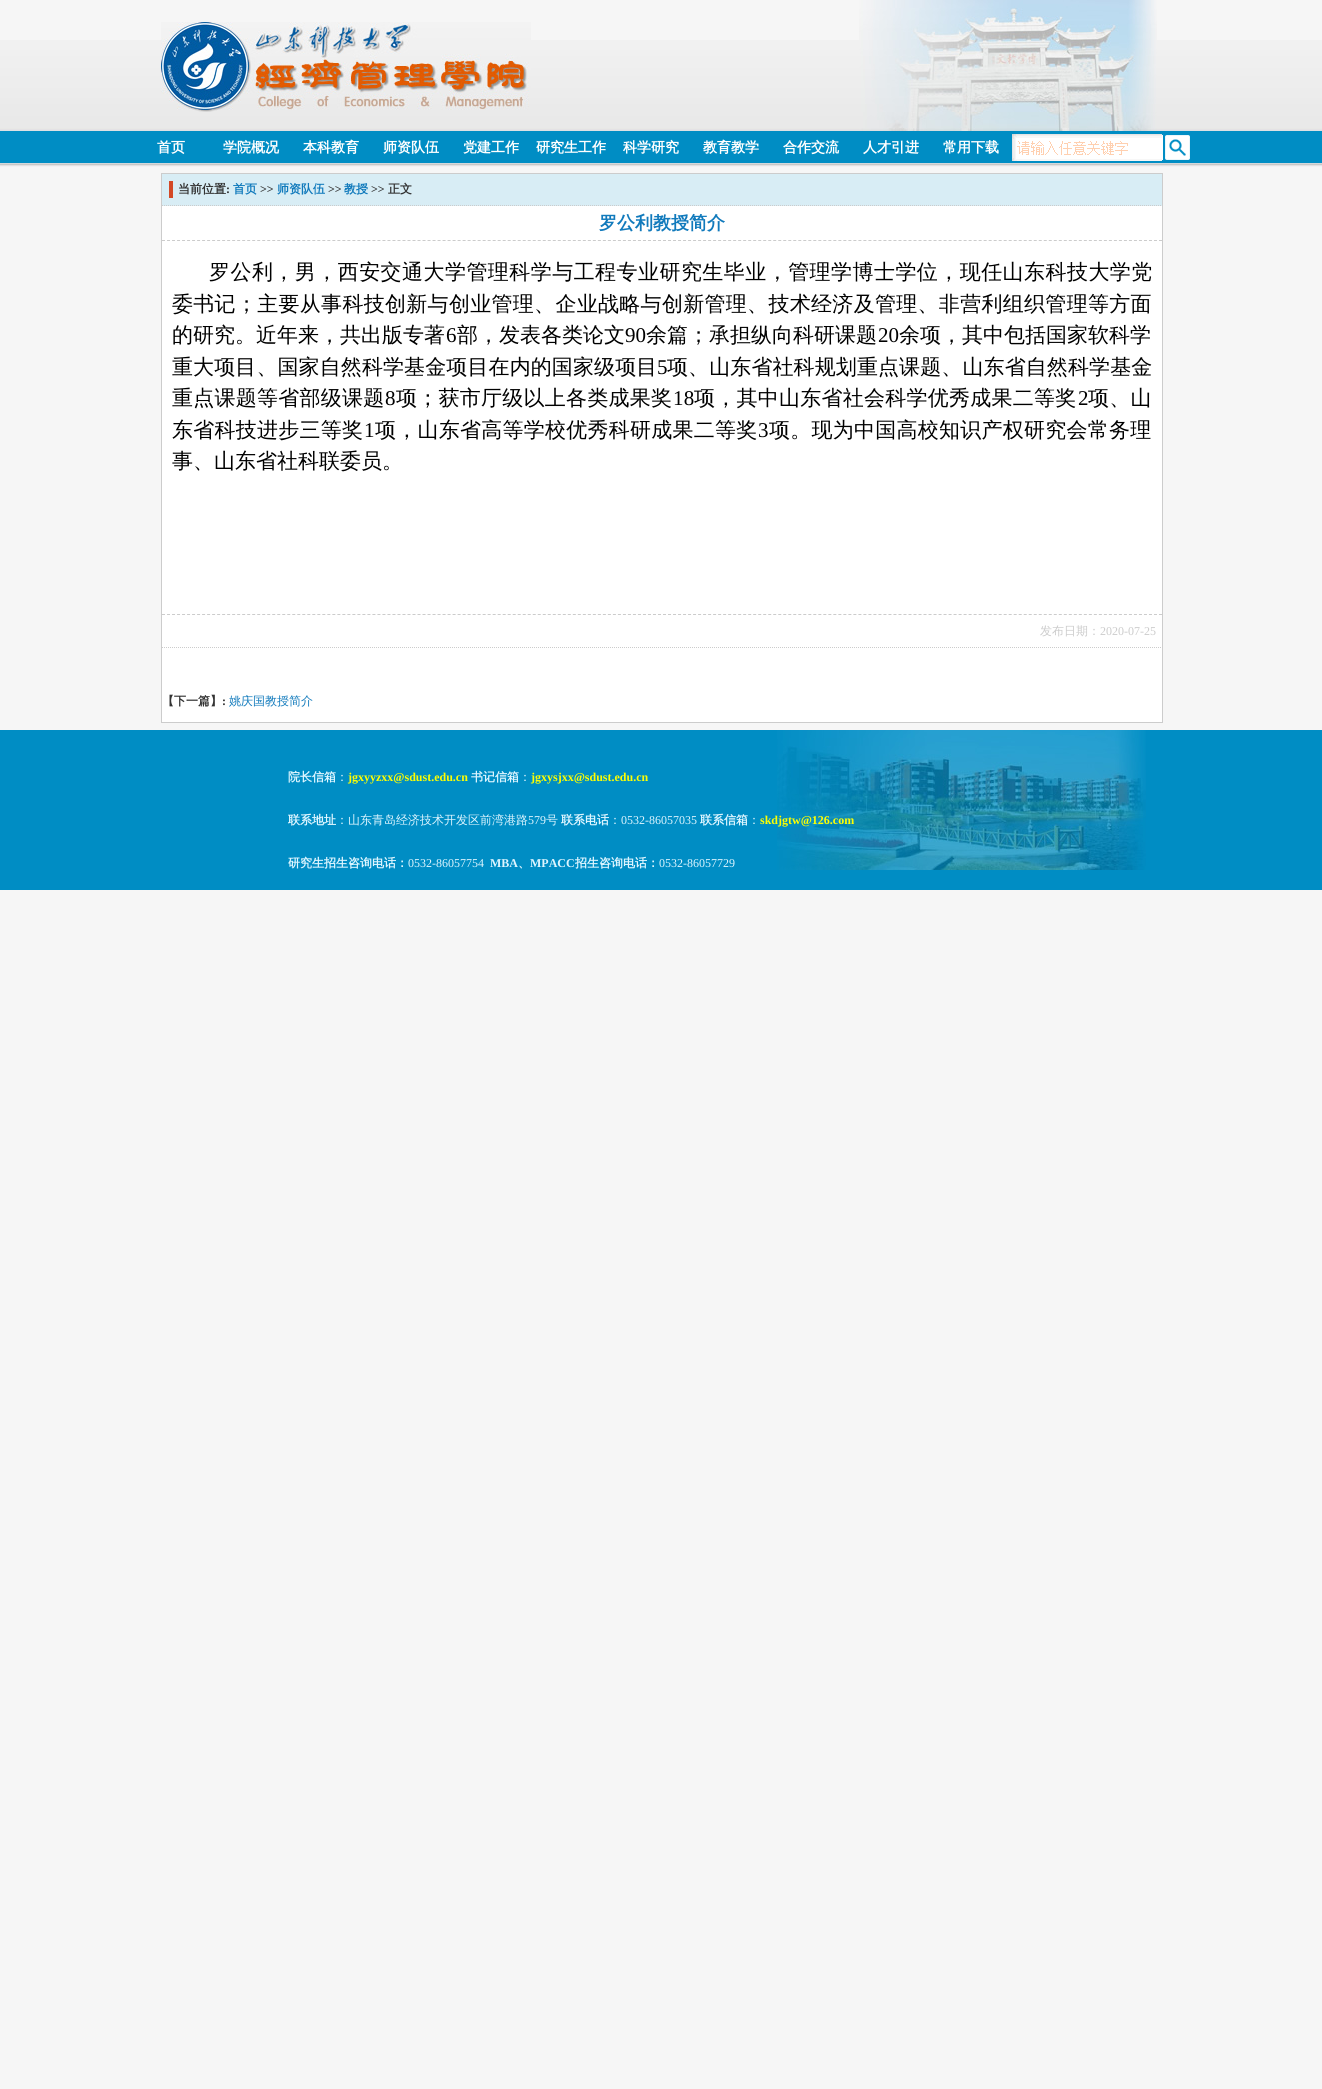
import math
import cairo



def draw_spaced(context, x, y, s, letter, word):
    context.move_to(x, y)
    for ch in s:
        context.show_text(ch)
        context.rel_move_to(letter + word * (ch == ' '), 0)


def draw_image(context, path, x, y, w, h):
    context.save()
    context.set_source_surface(cairo.ImageSurface.create_from_png(path), x, y)
    context.rectangle(x, y, w, h)
    context.fill()
    context.restore()


def draw(context):
    context.set_source_rgb(246 / 255, 246 / 255, 246 / 255)
    context.paint()
    draw_image(context, "images/1.png", 0, 40, 1322, 91)
    draw_image(context, "images/2.png", 161, 22, 370, 90)
    draw_image(context, "images/3.png", 859, 0, 298, 131)
    context.set_source_rgb(0, 141 / 255, 196 / 255)
    context.rectangle(0, 131, 1322, 32)
    context.fill()
    draw_image(context, "images/4.png", 1162, 134, 28, 27)
    draw_image(context, "images/5.png", 1012, 134, 150, 27)
    draw_image(context, "images/6.png", 0, 163, 1322, 4)
    context.set_source_rgb(1, 1, 1)
    context.rectangle(162, 206, 1000, 516)
    context.fill()
    context.rectangle(161.5, 173.5, 1001, 549)
    context.set_source_rgb(204 / 255, 204 / 255, 204 / 255)
    context.set_line_width(1)
    context.stroke()
    context.set_source_rgb(216 / 255, 237 / 255, 245 / 255)
    context.rectangle(162, 174, 1000, 32)
    context.fill()
    context.new_path()
    context.move_to(162, 205.5)
    context.line_to(1162, 205.5)
    context.set_source_rgb(204 / 255, 204 / 255, 204 / 255)
    context.set_dash([1, 1])
    context.stroke()
    context.set_source_rgb(211 / 255, 73 / 255, 39 / 255)
    context.rectangle(169, 181, 4, 17)
    context.fill()
    context.new_path()
    context.move_to(162, 240.5)
    context.line_to(1162, 240.5)
    context.set_source_rgb(204 / 255, 204 / 255, 204 / 255)
    context.set_dash([3, 2.01])
    context.stroke()
    context.new_path()
    context.move_to(162, 614.5)
    context.line_to(1162, 614.5)
    context.stroke()
    context.new_path()
    context.move_to(162, 647.5)
    context.line_to(1162, 647.5)
    context.set_dash([1, 1])
    context.stroke()
    context.set_source_rgb(0, 141 / 255, 196 / 255)
    context.rectangle(0, 730, 1322, 160)
    context.fill()
    draw_image(context, "images/7.png", 777, 730, 369, 140)
    context.select_font_face("WenQuanYi Zen Hei", cairo.FontSlant.NORMAL, cairo.FontWeight.BOLD)
    context.set_font_size(14)
    context.set_source_rgb(1, 1, 1)
    context.move_to(157, 152)
    context.show_text("首页")
    context.move_to(223, 152)
    context.show_text("学院概况")
    context.move_to(303, 152)
    context.show_text("本科教育")
    context.move_to(383, 152)
    context.show_text("师资队伍")
    context.move_to(463, 152)
    context.show_text("党建工作")
    context.move_to(536, 152)
    context.show_text("研究生工作")
    context.move_to(623, 152)
    context.show_text("科学研究")
    context.move_to(703, 152)
    context.show_text("教育教学")
    context.move_to(783, 152)
    context.show_text("合作交流")
    context.move_to(863, 152)
    context.show_text("人才引进")
    context.move_to(943, 152)
    context.show_text("常用下载")
    context.set_font_size(12)
    context.set_source_rgb(51 / 255, 51 / 255, 51 / 255)
    context.move_to(178, 193)
    context.show_text("当前位置")
    context.select_font_face("Liberation Serif", cairo.FontSlant.NORMAL, cairo.FontWeight.BOLD)
    context.move_to(226, 193)
    context.show_text(":")
    context.select_font_face("WenQuanYi Zen Hei", cairo.FontSlant.NORMAL, cairo.FontWeight.BOLD)
    context.set_source_rgb(17 / 255, 122 / 255, 188 / 255)
    context.move_to(233, 193)
    context.show_text("首页")
    context.select_font_face("Liberation Serif", cairo.FontSlant.NORMAL, cairo.FontWeight.BOLD)
    context.set_source_rgb(51 / 255, 51 / 255, 51 / 255)
    context.move_to(260, 193)
    context.show_text(">>")
    context.select_font_face("WenQuanYi Zen Hei", cairo.FontSlant.NORMAL, cairo.FontWeight.BOLD)
    context.set_source_rgb(17 / 255, 122 / 255, 188 / 255)
    context.move_to(277, 193)
    context.show_text("师资队伍")
    context.select_font_face("Liberation Serif", cairo.FontSlant.NORMAL, cairo.FontWeight.BOLD)
    context.set_source_rgb(51 / 255, 51 / 255, 51 / 255)
    context.move_to(328, 193)
    context.show_text(">>")
    context.select_font_face("WenQuanYi Zen Hei", cairo.FontSlant.NORMAL, cairo.FontWeight.BOLD)
    context.set_source_rgb(17 / 255, 122 / 255, 188 / 255)
    context.move_to(344, 193)
    context.show_text("教授")
    context.select_font_face("Liberation Serif", cairo.FontSlant.NORMAL, cairo.FontWeight.BOLD)
    context.set_source_rgb(51 / 255, 51 / 255, 51 / 255)
    context.move_to(371, 193)
    context.show_text(">>")
    context.select_font_face("WenQuanYi Zen Hei", cairo.FontSlant.NORMAL, cairo.FontWeight.BOLD)
    context.move_to(388, 193)
    context.show_text("正文")
    context.set_font_size(18)
    context.set_source_rgb(17 / 255, 122 / 255, 188 / 255)
    context.move_to(599, 229)
    context.show_text("罗公利教授简介")
    context.select_font_face("WenQuanYi Zen Hei Medium")
    context.set_font_size(21)
    context.set_source_rgb(0, 0, 0)
    draw_spaced(context, 209, 279, "罗公利，男，西安交通大学管理科学与工程专业研究生毕业，管理学博士学位，现任山东科技大学党", 0.45, 0)
    draw_spaced(context, 172, 311, "委书记；主要从事科技创新与创业管理、企业战略与创新管理、技术经济及管理、非营利组织管理等方面", 0.3, 0)
    context.move_to(172, 342)
    context.show_text("的研究。近年来，共出版专著")
    context.select_font_face("Liberation Serif")
    context.move_to(446, 342)
    context.show_text("6")
    context.select_font_face("WenQuanYi Zen Hei Medium")
    context.move_to(457, 342)
    context.show_text("部，发表各类论文")
    context.select_font_face("Liberation Serif")
    context.move_to(625, 342)
    context.show_text("90")
    context.select_font_face("WenQuanYi Zen Hei Medium")
    context.move_to(646, 342)
    context.show_text("余篇；承担纵向科研课题")
    context.select_font_face("Liberation Serif")
    context.move_to(878, 342)
    context.show_text("20")
    context.select_font_face("WenQuanYi Zen Hei Medium")
    context.move_to(899, 342)
    context.show_text("余项，其中包括国家软科学")
    draw_spaced(context, 172, 374, "重大项目、国家自然科学基金项目在内的国家级项目", 0.1, 0)
    context.select_font_face("Liberation Serif")
    draw_spaced(context, 657, 374, "5", 0.1, 0)
    context.select_font_face("WenQuanYi Zen Hei Medium")
    draw_spaced(context, 667, 374, "项、山东省社科规划重点课题、山东省自然科学基金", 0.1, 0)
    draw_spaced(context, 172, 405, "重点课题等省部级课题", 0.25, 0)
    context.select_font_face("Liberation Serif")
    draw_spaced(context, 385, 405, "8", 0.25, 0)
    context.select_font_face("WenQuanYi Zen Hei Medium")
    draw_spaced(context, 396, 405, "项；获市厅级以上各类成果奖", 0.25, 0)
    context.select_font_face("Liberation Serif")
    draw_spaced(context, 673, 405, "18", 0.25, 0)
    context.select_font_face("WenQuanYi Zen Hei Medium")
    draw_spaced(context, 694, 405, "项，其中山东省社会科学优秀成果二等奖", 0.25, 0)
    context.select_font_face("Liberation Serif")
    draw_spaced(context, 1078, 405, "2", 0.25, 0)
    context.select_font_face("WenQuanYi Zen Hei Medium")
    draw_spaced(context, 1088, 405, "项、山", 0.25, 0)
    draw_spaced(context, 172, 437, "东省科技进步三等奖", 0.25, 0)
    context.select_font_face("Liberation Serif")
    draw_spaced(context, 364, 437, "1", 0.25, 0)
    context.select_font_face("WenQuanYi Zen Hei Medium")
    draw_spaced(context, 375, 437, "项，山东省高等学校优秀科研成果二等奖", 0.25, 0)
    context.select_font_face("Liberation Serif")
    draw_spaced(context, 758, 437, "3", 0.25, 0)
    context.select_font_face("WenQuanYi Zen Hei Medium")
    draw_spaced(context, 769, 437, "项。现为中国高校知识产权研究会常务理", 0.25, 0)
    context.move_to(172, 468)
    context.show_text("事、山东省社科联委员。")
    context.set_font_size(12)
    context.set_source_rgb(204 / 255, 204 / 255, 204 / 255)
    context.move_to(1040, 635)
    context.show_text("发布日期：")
    context.select_font_face("Liberation Serif")
    context.move_to(1100, 635)
    context.show_text("2020-07-25")
    context.select_font_face("WenQuanYi Zen Hei", cairo.FontSlant.NORMAL, cairo.FontWeight.BOLD)
    context.set_source_rgb(51 / 255, 51 / 255, 51 / 255)
    context.move_to(162, 705)
    context.show_text("【下一篇】")
    context.select_font_face("Liberation Serif", cairo.FontSlant.NORMAL, cairo.FontWeight.BOLD)
    context.move_to(222, 705)
    context.show_text(":")
    context.select_font_face("WenQuanYi Zen Hei Medium")
    context.set_source_rgb(17 / 255, 122 / 255, 188 / 255)
    context.move_to(229, 705)
    context.show_text("姚庆国教授简介")
    context.select_font_face("WenQuanYi Zen Hei", cairo.FontSlant.NORMAL, cairo.FontWeight.BOLD)
    context.set_source_rgb(221 / 255, 245 / 255, 1)
    context.move_to(288, 781)
    context.show_text("院长信箱")
    context.select_font_face("WenQuanYi Zen Hei Medium")
    context.move_to(336, 781)
    context.show_text("：")
    context.select_font_face("Liberation Serif", cairo.FontSlant.NORMAL, cairo.FontWeight.BOLD)
    context.set_source_rgb(1, 1, 0)
    context.move_to(348, 781)
    context.show_text("jgxyyzxx@sdust.edu.cn")
    context.select_font_face("WenQuanYi Zen Hei", cairo.FontSlant.NORMAL, cairo.FontWeight.BOLD)
    context.set_source_rgb(221 / 255, 245 / 255, 1)
    context.move_to(471, 781)
    context.show_text("书记信箱")
    context.select_font_face("WenQuanYi Zen Hei Medium")
    context.move_to(519, 781)
    context.show_text("：")
    context.select_font_face("Liberation Serif", cairo.FontSlant.NORMAL, cairo.FontWeight.BOLD)
    context.set_source_rgb(1, 1, 0)
    context.move_to(531, 781)
    context.show_text("jgxysjxx@sdust.edu.cn")
    context.select_font_face("WenQuanYi Zen Hei", cairo.FontSlant.NORMAL, cairo.FontWeight.BOLD)
    context.set_source_rgb(221 / 255, 245 / 255, 1)
    context.move_to(288, 824)
    context.show_text("联系地址")
    context.select_font_face("WenQuanYi Zen Hei Medium")
    context.move_to(336, 824)
    context.show_text("：山东青岛经济技术开发区前湾港路")
    context.select_font_face("Liberation Serif")
    context.move_to(528, 824)
    context.show_text("579")
    context.select_font_face("WenQuanYi Zen Hei Medium")
    context.move_to(546, 824)
    context.show_text("号")
    context.select_font_face("WenQuanYi Zen Hei", cairo.FontSlant.NORMAL, cairo.FontWeight.BOLD)
    context.move_to(561, 824)
    context.show_text("联系电话")
    context.select_font_face("WenQuanYi Zen Hei Medium")
    context.move_to(609, 824)
    context.show_text("：")
    context.select_font_face("Liberation Serif")
    context.move_to(621, 824)
    context.show_text("0532-86057035")
    context.select_font_face("WenQuanYi Zen Hei", cairo.FontSlant.NORMAL, cairo.FontWeight.BOLD)
    context.move_to(700, 824)
    context.show_text("联系信箱")
    context.select_font_face("WenQuanYi Zen Hei Medium")
    context.move_to(748, 824)
    context.show_text("：")
    context.select_font_face("Liberation Serif", cairo.FontSlant.NORMAL, cairo.FontWeight.BOLD)
    context.set_source_rgb(1, 1, 0)
    context.move_to(760, 824)
    context.show_text("skdjgtw@126.com")
    context.select_font_face("WenQuanYi Zen Hei", cairo.FontSlant.NORMAL, cairo.FontWeight.BOLD)
    context.set_source_rgb(221 / 255, 245 / 255, 1)
    context.move_to(288, 867)
    context.show_text("研究生招生咨询电话：")
    context.select_font_face("Liberation Serif")
    context.move_to(408, 867)
    context.show_text("0532-86057754")
    context.select_font_face("Liberation Serif", cairo.FontSlant.NORMAL, cairo.FontWeight.BOLD)
    context.move_to(490, 867)
    context.show_text("MBA")
    context.select_font_face("WenQuanYi Zen Hei", cairo.FontSlant.NORMAL, cairo.FontWeight.BOLD)
    context.move_to(518, 867)
    context.show_text("、")
    context.select_font_face("Liberation Serif", cairo.FontSlant.NORMAL, cairo.FontWeight.BOLD)
    context.move_to(530, 867)
    context.show_text("MPACC")
    context.select_font_face("WenQuanYi Zen Hei", cairo.FontSlant.NORMAL, cairo.FontWeight.BOLD)
    context.move_to(575, 867)
    context.show_text("招生咨询电话：")
    context.select_font_face("Liberation Serif")
    context.move_to(659, 867)
    context.show_text("0532-86057729")


surface = cairo.ImageSurface(cairo.Format.RGB24, 1322, 2089)
context = cairo.Context(surface)
options = cairo.FontOptions()
options.set_hint_metrics(cairo.HintMetrics.OFF)
options.set_hint_style(cairo.HintStyle.NONE)
context.set_font_options(options)
context.set_miter_limit(4)
draw(context)
surface.write_to_png("out.png")
